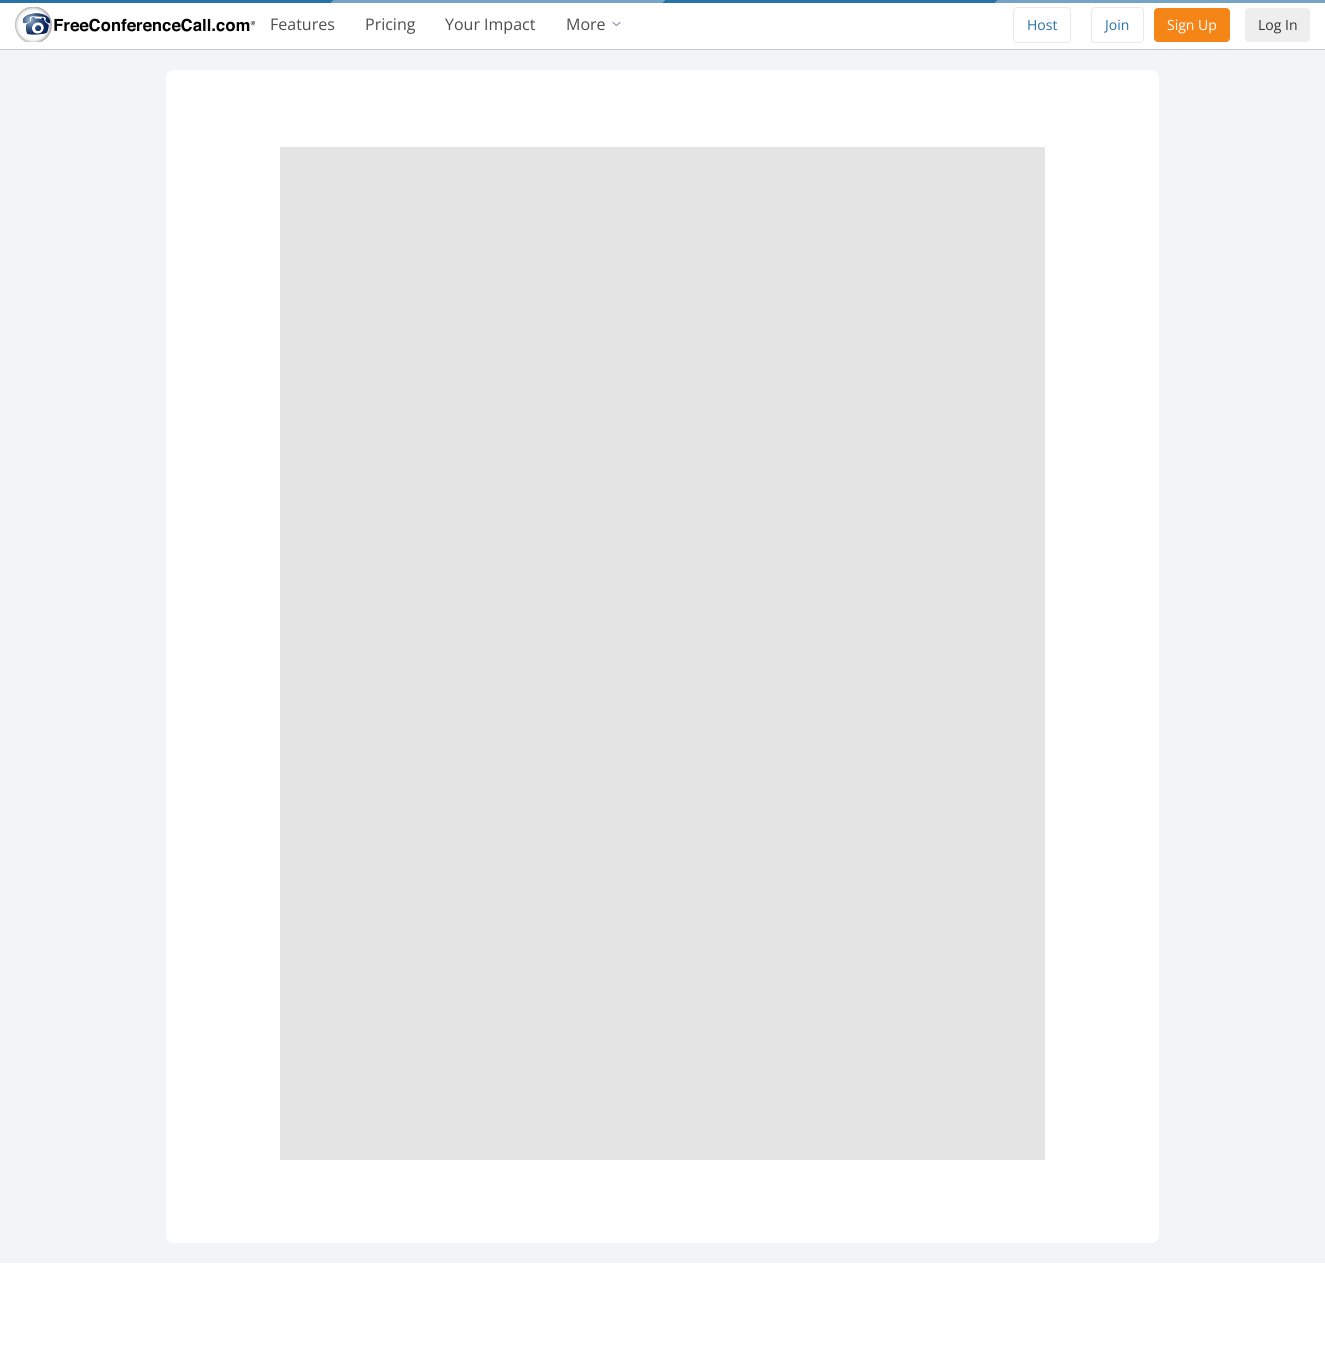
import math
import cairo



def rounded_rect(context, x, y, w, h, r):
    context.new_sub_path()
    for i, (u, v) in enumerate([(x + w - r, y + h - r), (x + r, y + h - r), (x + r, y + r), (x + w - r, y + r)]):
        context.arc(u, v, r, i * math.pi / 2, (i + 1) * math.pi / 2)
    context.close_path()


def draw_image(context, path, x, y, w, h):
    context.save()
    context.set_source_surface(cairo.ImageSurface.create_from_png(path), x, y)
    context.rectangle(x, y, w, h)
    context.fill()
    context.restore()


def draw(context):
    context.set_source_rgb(1, 1, 1)
    context.paint()
    gradient = cairo.LinearGradient(995, 334, 331, -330)
    gradient.add_color_stop_rgba(0.25, 115 / 255, 164 / 255, 198 / 255, 1)
    gradient.add_color_stop_rgba(0.25, 39 / 255, 115 / 255, 167 / 255, 1)
    gradient.add_color_stop_rgba(0.5, 39 / 255, 115 / 255, 167 / 255, 1)
    gradient.add_color_stop_rgba(0.5, 115 / 255, 164 / 255, 198 / 255, 1)
    gradient.add_color_stop_rgba(0.75, 115 / 255, 164 / 255, 198 / 255, 1)
    gradient.add_color_stop_rgba(0.75, 39 / 255, 115 / 255, 167 / 255, 1)
    gradient.add_color_stop_rgba(1, 39 / 255, 115 / 255, 167 / 255, 1)
    context.set_source(gradient)
    context.rectangle(0, 0, 1325, 3)
    context.fill()
    context.set_source_rgb(243 / 255, 244 / 255, 246 / 255)
    context.rectangle(0, 50, 1325, 1213)
    context.fill()
    context.set_source_rgb(196 / 255, 201 / 255, 210 / 255)
    context.rectangle(0, 49, 1325, 1)
    context.fill()
    draw_image(context, "images/1.png", 15, 7, 240, 35)
    context.new_path()
    context.move_to(620, 22.5)
    context.line_to(616.5, 25.5)
    context.line_to(613, 22.5)
    context.set_source_rgb(137 / 255, 147 / 255, 164 / 255)
    context.set_line_width(1.1)
    context.set_line_cap(cairo.LineCap.ROUND)
    context.set_line_join(cairo.LineJoin.ROUND)
    context.stroke()
    rounded_rect(context, 1013.5, 7.5, 57, 35, 3.5)
    context.set_source_rgb(231 / 255, 233 / 255, 237 / 255)
    context.set_line_width(1)
    context.set_line_cap(cairo.LineCap.BUTT)
    context.set_line_join(cairo.LineJoin.MITER)
    context.stroke()
    rounded_rect(context, 1091.5, 7.5, 52, 35, 3.5)
    context.stroke()
    context.set_source_rgb(245 / 255, 133 / 255, 23 / 255)
    rounded_rect(context, 1154, 8, 76, 34, 4)
    context.fill()
    context.set_source_rgb(238 / 255, 238 / 255, 238 / 255)
    rounded_rect(context, 1245, 8, 65, 34, 4)
    context.fill()
    context.set_source_rgb(1, 1, 1)
    rounded_rect(context, 166, 70, 993, 1173, 8)
    context.fill()
    context.set_source_rgb(228 / 255, 228 / 255, 228 / 255)
    context.rectangle(280, 147, 765, 1013)
    context.fill()
    context.select_font_face("Open Sans")
    context.set_font_size(16)
    context.set_source_rgb(77 / 255, 77 / 255, 77 / 255)
    context.move_to(270, 30)
    context.show_text("Features")
    context.move_to(365, 30)
    context.show_text("Pricing")
    context.move_to(445, 30)
    context.show_text("Your Impact")
    context.move_to(566, 30)
    context.show_text("More")
    context.set_font_size(14)
    context.set_source_rgb(39 / 255, 115 / 255, 167 / 255)
    context.move_to(1027, 30)
    context.show_text("Host")
    context.move_to(1105, 30)
    context.show_text("Join")
    context.set_source_rgb(1, 1, 1)
    context.move_to(1167, 30)
    context.show_text("Sign Up")
    context.set_source_rgb(51 / 255, 51 / 255, 51 / 255)
    context.move_to(1258, 30)
    context.show_text("Log In")


surface = cairo.ImageSurface(cairo.Format.RGB24, 1325, 1351)
context = cairo.Context(surface)
options = cairo.FontOptions()
options.set_hint_metrics(cairo.HintMetrics.OFF)
options.set_hint_style(cairo.HintStyle.NONE)
context.set_font_options(options)
context.set_miter_limit(4)
draw(context)
surface.write_to_png("out.png")
